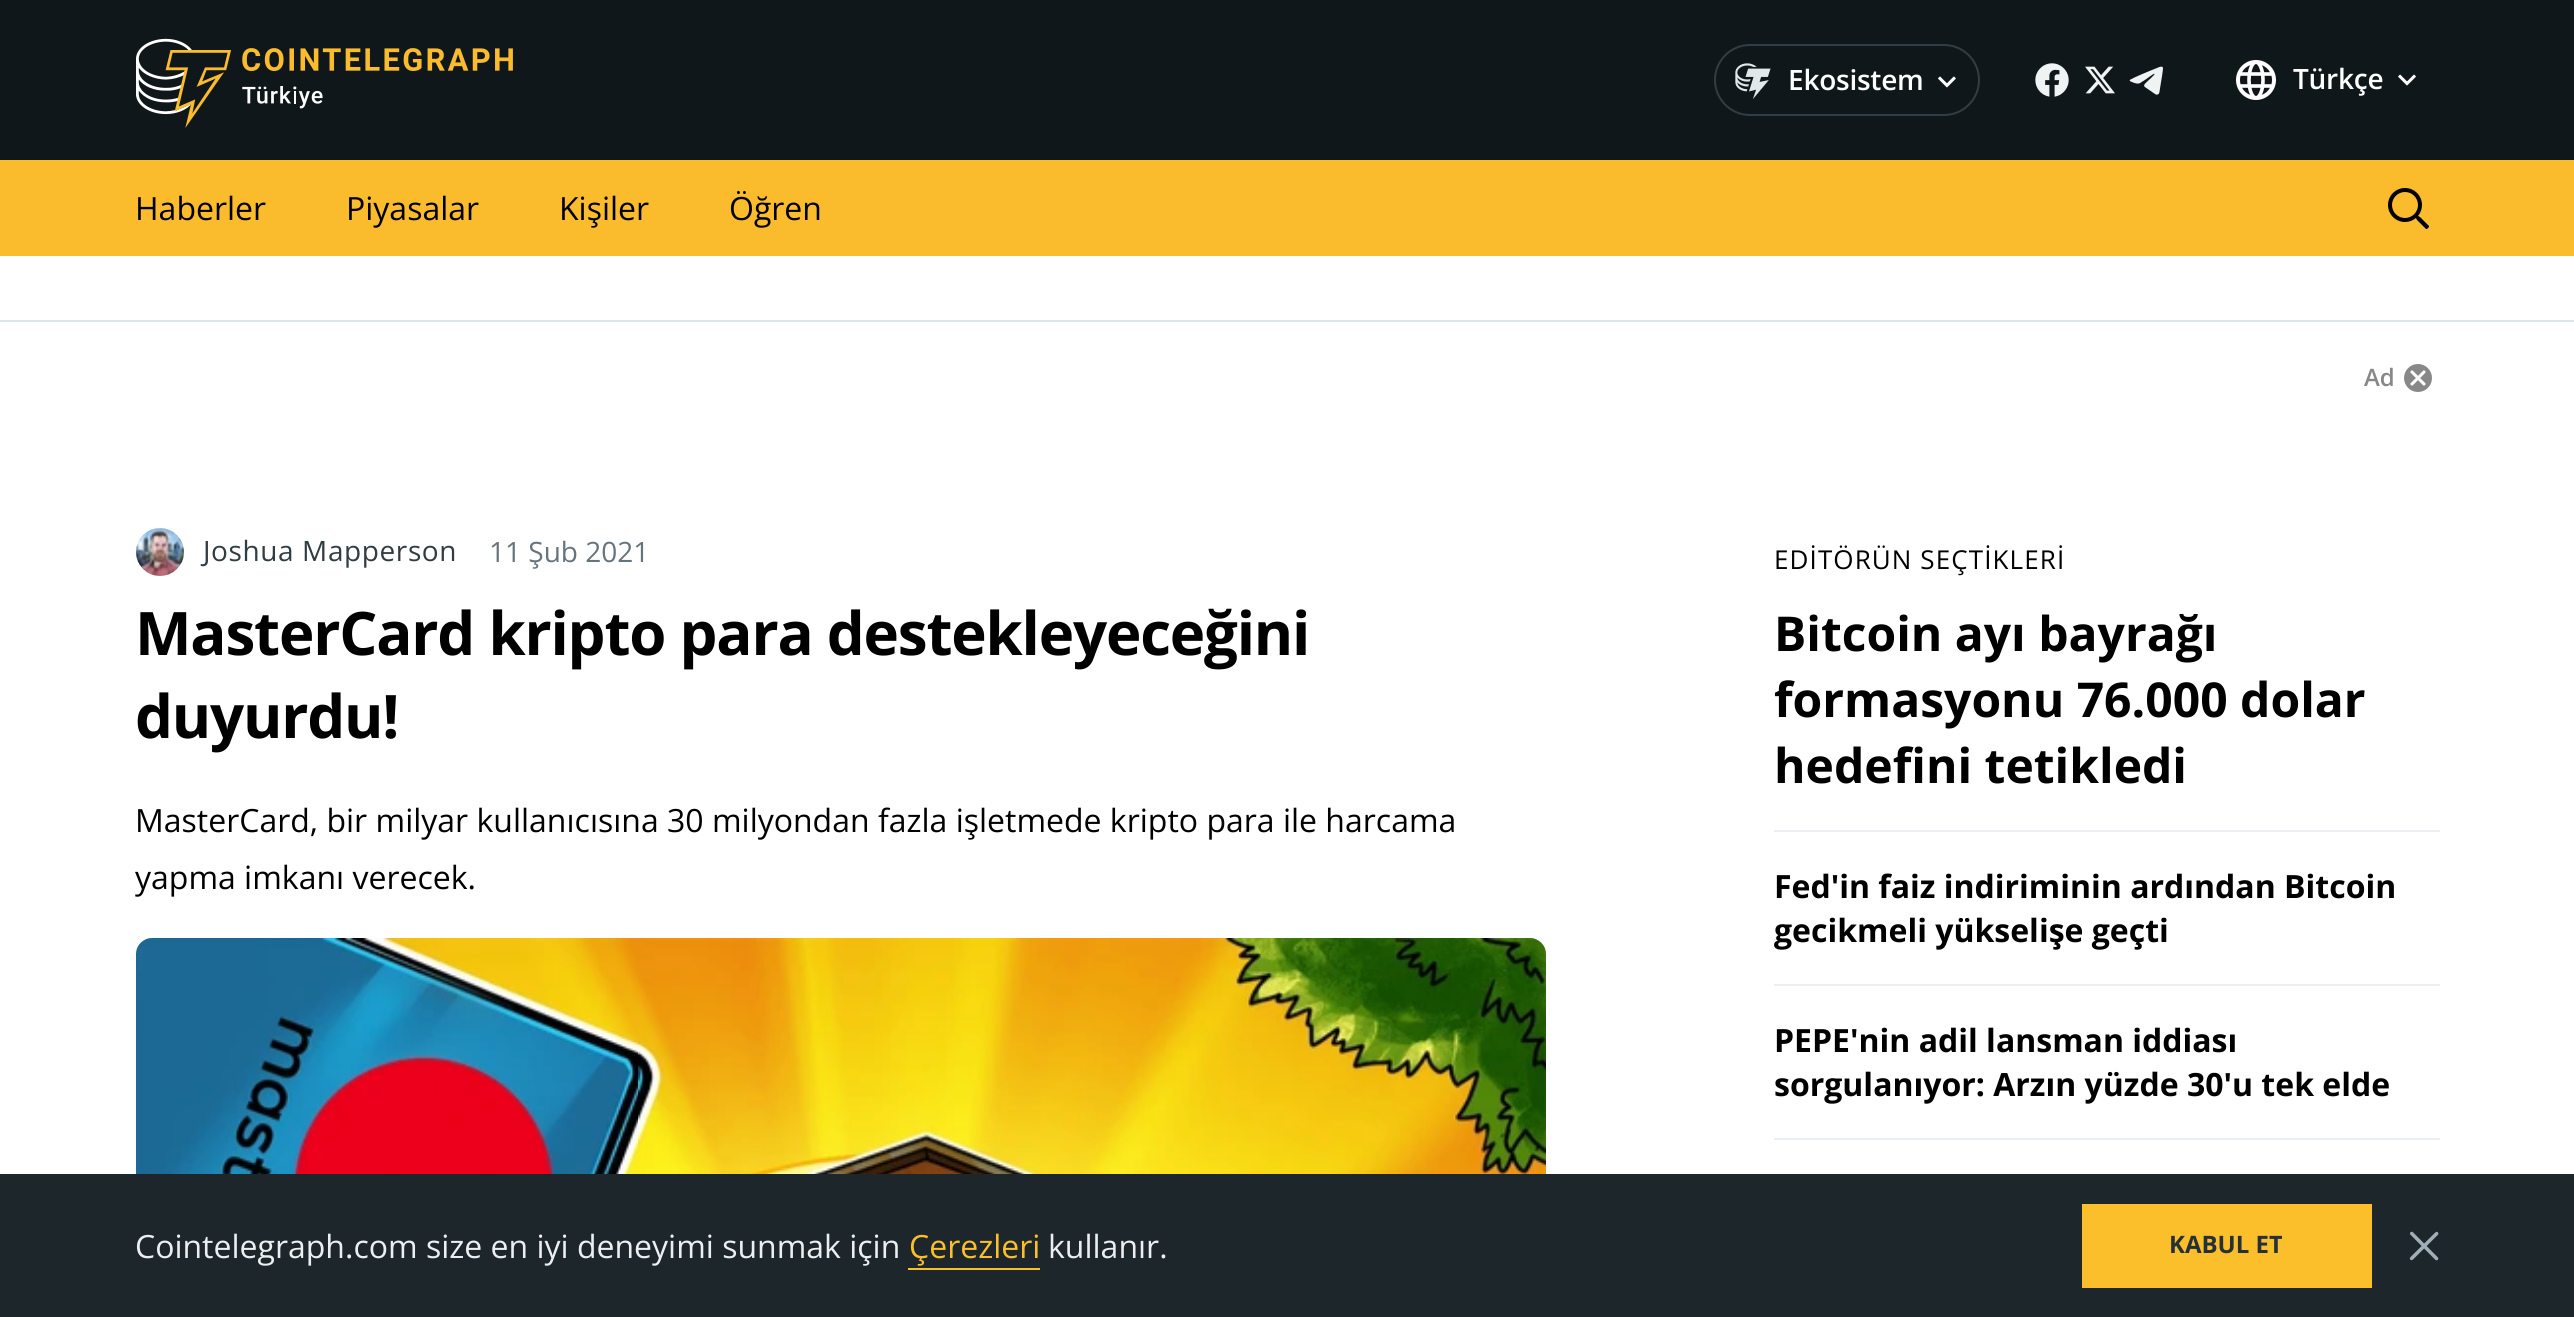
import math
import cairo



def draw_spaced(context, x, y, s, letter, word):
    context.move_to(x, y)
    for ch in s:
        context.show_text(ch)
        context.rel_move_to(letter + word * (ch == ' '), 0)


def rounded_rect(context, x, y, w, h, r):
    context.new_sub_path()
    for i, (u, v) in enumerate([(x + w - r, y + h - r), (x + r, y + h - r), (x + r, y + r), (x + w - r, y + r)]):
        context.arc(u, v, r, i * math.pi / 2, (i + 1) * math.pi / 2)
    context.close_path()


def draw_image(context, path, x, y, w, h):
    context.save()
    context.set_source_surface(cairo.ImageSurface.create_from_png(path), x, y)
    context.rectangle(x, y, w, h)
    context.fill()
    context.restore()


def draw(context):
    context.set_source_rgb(1, 1, 1)
    context.paint()
    context.set_source_rgb(16 / 255, 23 / 255, 27 / 255)
    context.rectangle(0, 0, 2574, 160)
    context.fill()
    draw_image(context, "images/1.png", 136, 38, 377, 90)
    rounded_rect(context, 1715, 45, 264, 70, 35)
    context.set_source_rgb(48 / 255, 61 / 255, 67 / 255)
    context.stroke()
    draw_image(context, "images/2.png", 1735, 63, 36, 36)
    draw_image(context, "images/3.png", 1938, 76, 18, 12)
    draw_image(context, "images/4.png", 2035, 63, 34, 34)
    draw_image(context, "images/5.png", 2085, 66, 30, 28)
    draw_image(context, "images/6.png", 2129, 66, 34, 29)
    draw_image(context, "images/7.png", 2236, 60, 40, 40)
    draw_image(context, "images/8.png", 2398, 74, 18, 12)
    context.set_source_rgb(250 / 255, 188 / 255, 44 / 255)
    context.rectangle(0, 160, 2574, 96)
    context.fill()
    draw_image(context, "images/9.png", 2388, 188, 42, 42)
    context.set_source_rgb(222 / 255, 229 / 255, 232 / 255)
    context.rectangle(0, 320, 2574, 2)
    context.fill()
    draw_image(context, "images/10.png", 2404, 364, 28, 28)
    draw_image(context, "images/11.png", 136, 528, 48, 48)
    draw_image(context, "images/12.png", 136, 938, 1410, 236)
    context.set_source_rgb(236 / 255, 239 / 255, 242 / 255)
    context.rectangle(1774, 830, 666, 2)
    context.fill()
    context.rectangle(1774, 984, 666, 2)
    context.fill()
    context.rectangle(1774, 1138, 666, 2)
    context.fill()
    context.set_source_rgb(29 / 255, 38 / 255, 43 / 255)
    context.rectangle(0, 1174, 2574, 143)
    context.fill()
    context.set_source_rgb(250 / 255, 191 / 255, 44 / 255)
    context.rectangle(908, 1268, 132, 2)
    context.fill()
    context.set_source_rgb(250 / 255, 191 / 255, 43 / 255)
    context.rectangle(2082, 1204, 290, 84)
    context.fill()
    draw_image(context, "images/13.png", 2409, 1231, 30, 30)
    context.select_font_face("Open Sans SemiBold")
    context.set_font_size(28)
    context.set_source_rgb(1, 1, 1)
    draw_spaced(context, 1788, 90, "Ekosistem", -0.25, 0)
    draw_spaced(context, 2293, 89, "Türkçe", -0.25, 0)
    context.select_font_face("Open Sans")
    context.set_font_size(32)
    context.set_source_rgb(0, 0, 0)
    context.move_to(135, 220)
    context.show_text("Haberler")
    context.move_to(346, 220)
    context.show_text("Piyasalar")
    context.move_to(559, 220)
    context.show_text("Kişiler")
    context.move_to(729, 220)
    context.show_text("Öğren")
    context.select_font_face("Open Sans SemiBold")
    context.set_font_size(24)
    context.set_source_rgb(136 / 255, 136 / 255, 136 / 255)
    context.move_to(2364, 386)
    context.show_text("Ad")
    context.select_font_face("Open Sans")
    context.set_font_size(28)
    context.set_source_rgb(48 / 255, 61 / 255, 67 / 255)
    draw_spaced(context, 203, 561, "Joshua Mapperson", 0.6, 0)
    context.set_source_rgb(102 / 255, 116 / 255, 124 / 255)
    context.move_to(489, 562)
    context.show_text("11 Şub 2021")
    context.select_font_face("Open Sans", cairo.FontSlant.NORMAL, cairo.FontWeight.BOLD)
    context.set_font_size(60)
    context.set_source_rgb(0, 0, 0)
    draw_spaced(context, 135, 655, "MasterCard kripto para destekleyeceğini", -1.2, 0)
    draw_spaced(context, 135, 738, "duyurdu!", -1.2, 0)
    context.select_font_face("Open Sans")
    context.set_font_size(32)
    context.move_to(135, 832)
    context.show_text("MasterCard, bir milyar kullanıcısına 30 milyondan fazla işletmede kripto para ile harcama")
    context.move_to(135, 889)
    context.show_text("yapma imkanı verecek.")
    context.set_font_size(26)
    draw_spaced(context, 1774, 569, "EDİTÖRÜN SEÇTİKLERİ", 1.1, 0)
    context.select_font_face("Open Sans", cairo.FontSlant.NORMAL, cairo.FontWeight.BOLD)
    context.set_font_size(48)
    context.move_to(1774, 651)
    context.show_text("Bitcoin ayı bayrağı")
    context.move_to(1774, 717)
    context.show_text("formasyonu 76.000 dolar")
    context.move_to(1774, 783)
    context.show_text("hedefini tetikledi")
    context.set_font_size(32)
    context.move_to(1774, 898)
    context.show_text("Fed'in faiz indiriminin ardından Bitcoin")
    context.move_to(1774, 942)
    context.show_text("gecikmeli yükselişe geçti")
    context.move_to(1774, 1052)
    context.show_text("PEPE'nin adil lansman iddiası")
    context.move_to(1774, 1096)
    context.show_text("sorgulanıyor: Arzın yüzde 30'u tek elde")
    context.select_font_face("Open Sans")
    context.set_source_rgb(236 / 255, 239 / 255, 241 / 255)
    context.move_to(135, 1258)
    context.show_text("Cointelegraph.com size en iyi deneyimi sunmak için")
    context.set_source_rgb(250 / 255, 191 / 255, 44 / 255)
    context.move_to(909, 1258)
    context.show_text("Çerezleri")
    context.set_source_rgb(236 / 255, 239 / 255, 241 / 255)
    context.move_to(1048, 1258)
    context.show_text("kullanır.")
    context.save()
    context.rectangle(2170, 1230, 112, 32)
    context.clip()
    context.select_font_face("Open Sans", cairo.FontSlant.NORMAL, cairo.FontWeight.BOLD)
    context.set_font_size(24)
    context.set_source_rgb(37 / 255, 49 / 255, 55 / 255)
    context.move_to(2169, 1253)
    context.show_text("KABUL ET")
    context.restore()


surface = cairo.ImageSurface(cairo.Format.RGB24, 2574, 1317)
context = cairo.Context(surface)
options = cairo.FontOptions()
options.set_hint_metrics(cairo.HintMetrics.OFF)
options.set_hint_style(cairo.HintStyle.NONE)
context.set_font_options(options)
context.set_miter_limit(4)
draw(context)
surface.write_to_png("out.png")
